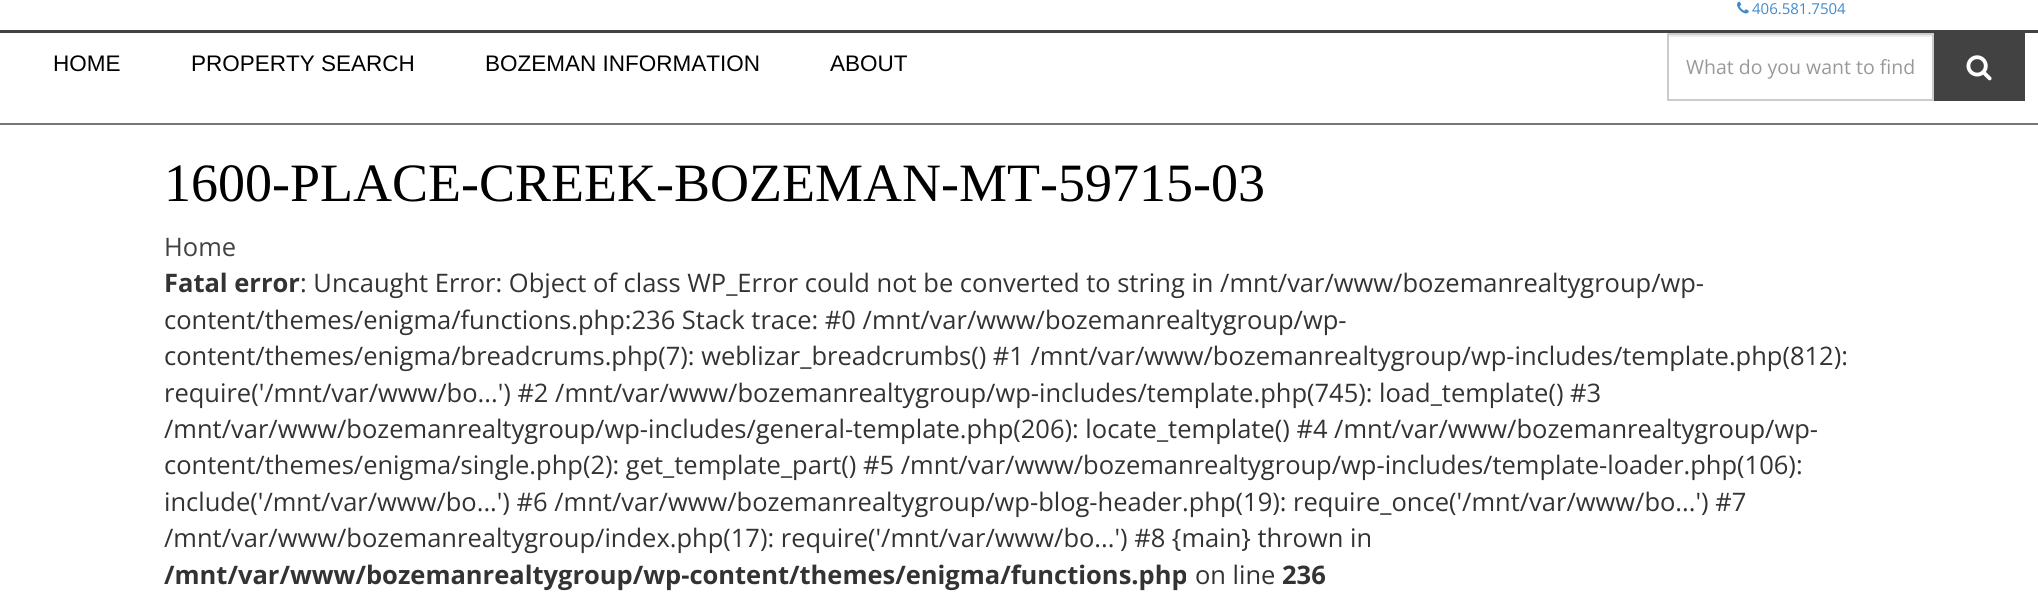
import math
import cairo



def draw_image(context, path, x, y, w, h):
    context.save()
    context.set_source_surface(cairo.ImageSurface.create_from_png(path), x, y)
    context.rectangle(x, y, w, h)
    context.fill()
    context.restore()


def draw(context):
    context.set_source_rgb(1, 1, 1)
    context.paint()
    draw_image(context, "images/1.png", 1737, 1, 12, 13)
    context.set_source_rgb(66 / 255, 66 / 255, 66 / 255)
    context.rectangle(0, 30, 2038, 3)
    context.fill()
    context.set_source_rgb(119 / 255, 119 / 255, 119 / 255)
    context.rectangle(0, 123, 2038, 2)
    context.fill()
    context.set_source_rgb(236 / 255, 236 / 255, 236 / 255)
    context.rectangle(1668, 35, 264, 2)
    context.fill()
    context.rectangle(1668, 34, 265, 66)
    context.set_source_rgb(204 / 255, 204 / 255, 204 / 255)
    context.stroke()
    context.set_source_rgb(66 / 255, 66 / 255, 66 / 255)
    context.rectangle(1934, 33, 91, 68)
    context.fill()
    draw_image(context, "images/2.png", 1966, 55, 26, 26)
    context.select_font_face("Open Sans")
    context.set_font_size(15)
    context.set_source_rgb(66 / 255, 139 / 255, 202 / 255)
    context.move_to(1752, 14)
    context.show_text("406.581.7504")
    context.select_font_face("Liberation Sans")
    context.set_font_size(22.5)
    context.set_source_rgb(0, 0, 0)
    context.move_to(53, 71)
    context.show_text("HOME")
    context.move_to(191, 71)
    context.show_text("PROPERTY SEARCH")
    context.move_to(485, 71)
    context.show_text("BOZEMAN INFORMATION")
    context.move_to(830, 71)
    context.show_text("ABOUT")
    context.select_font_face("Open Sans")
    context.set_font_size(19.5)
    context.set_source_rgb(153 / 255, 153 / 255, 153 / 255)
    context.move_to(1686, 74)
    context.show_text("What do you want to find")
    context.select_font_face("Liberation Serif")
    context.set_font_size(54)
    context.set_source_rgb(0, 0, 0)
    context.move_to(164, 201)
    context.show_text("1600-PLACE-CREEK-BOZEMAN-MT-59715-03")
    context.select_font_face("Open Sans")
    context.set_font_size(25.5)
    context.set_source_rgb(66 / 255, 66 / 255, 66 / 255)
    context.move_to(164, 256)
    context.show_text("Home")
    context.select_font_face("Open Sans", cairo.FontSlant.NORMAL, cairo.FontWeight.BOLD)
    context.set_source_rgb(51 / 255, 51 / 255, 51 / 255)
    context.move_to(164, 292)
    context.show_text("Fatal error")
    context.select_font_face("Open Sans")
    context.move_to(300, 292)
    context.show_text(": Uncaught Error: Object of class WP_Error could not be converted to string in /mnt/var/www/bozemanrealtygroup/wp-")
    context.move_to(164, 329)
    context.show_text("content/themes/enigma/functions.php:236 Stack trace: #0 /mnt/var/www/bozemanrealtygroup/wp-")
    context.move_to(164, 365)
    context.show_text("content/themes/enigma/breadcrums.php(7): weblizar_breadcrumbs() #1 /mnt/var/www/bozemanrealtygroup/wp-includes/template.php(812):")
    context.move_to(164, 402)
    context.show_text("require('/mnt/var/www/bo...') #2 /mnt/var/www/bozemanrealtygroup/wp-includes/template.php(745): load_template() #3")
    context.move_to(164, 438)
    context.show_text("/mnt/var/www/bozemanrealtygroup/wp-includes/general-template.php(206): locate_template() #4 /mnt/var/www/bozemanrealtygroup/wp-")
    context.move_to(164, 474)
    context.show_text("content/themes/enigma/single.php(2): get_template_part() #5 /mnt/var/www/bozemanrealtygroup/wp-includes/template-loader.php(106):")
    context.move_to(164, 511)
    context.show_text("include('/mnt/var/www/bo...') #6 /mnt/var/www/bozemanrealtygroup/wp-blog-header.php(19): require_once('/mnt/var/www/bo...') #7")
    context.move_to(164, 547)
    context.show_text("/mnt/var/www/bozemanrealtygroup/index.php(17): require('/mnt/var/www/bo...') #8 {main} thrown in")
    context.select_font_face("Open Sans", cairo.FontSlant.NORMAL, cairo.FontWeight.BOLD)
    context.move_to(164, 584)
    context.show_text("/mnt/var/www/bozemanrealtygroup/wp-content/themes/enigma/functions.php")
    context.select_font_face("Open Sans")
    context.move_to(1195, 584)
    context.show_text("on line")
    context.select_font_face("Open Sans", cairo.FontSlant.NORMAL, cairo.FontWeight.BOLD)
    context.move_to(1282, 584)
    context.show_text("236")


surface = cairo.ImageSurface(cairo.Format.RGB24, 2038, 593)
context = cairo.Context(surface)
options = cairo.FontOptions()
options.set_hint_metrics(cairo.HintMetrics.OFF)
options.set_hint_style(cairo.HintStyle.NONE)
context.set_font_options(options)
context.set_miter_limit(4)
draw(context)
surface.write_to_png("out.png")
